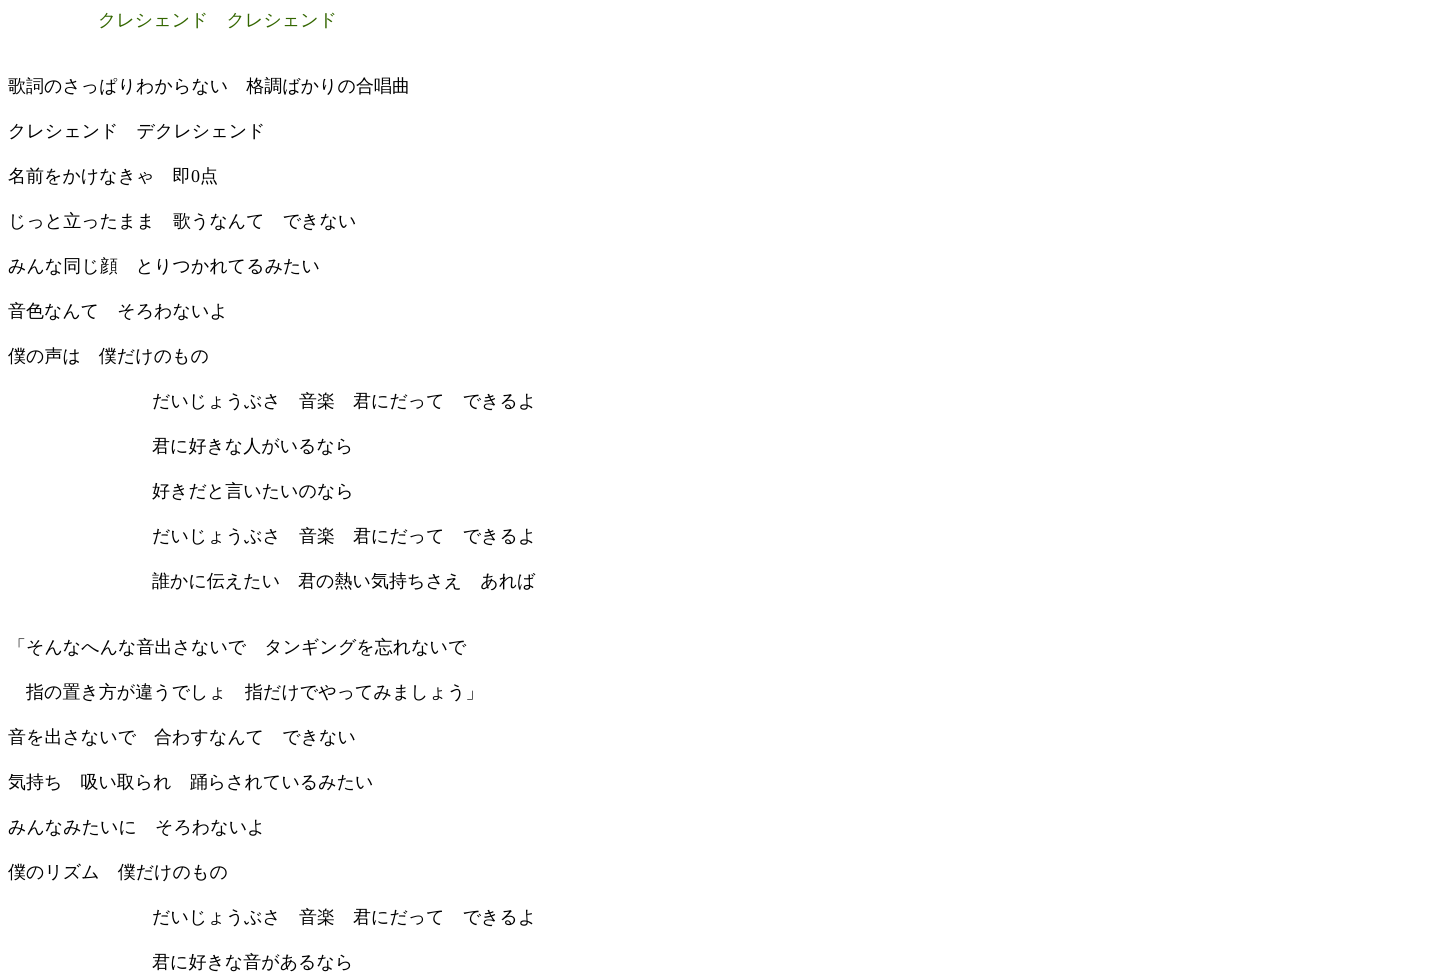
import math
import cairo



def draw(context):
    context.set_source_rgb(1, 1, 1)
    context.paint()
    context.select_font_face("WenQuanYi Zen Hei Medium")
    context.set_font_size(18)
    context.set_source_rgb(51 / 255, 102 / 255, 0)
    context.move_to(98, 26)
    context.show_text("クレシェンド　クレシェンド")
    context.set_source_rgb(0, 0, 0)
    context.move_to(8, 92)
    context.show_text("歌詞のさっぱりわからない　格調ばかりの合唱曲")
    context.move_to(8, 137)
    context.show_text("クレシェンド　デクレシェンド")
    context.move_to(8, 182)
    context.show_text("名前をかけなきゃ　即")
    context.select_font_face("Liberation Serif")
    context.move_to(191, 182)
    context.show_text("0")
    context.select_font_face("WenQuanYi Zen Hei Medium")
    context.move_to(200, 182)
    context.show_text("点")
    context.move_to(8, 227)
    context.show_text("じっと立ったまま　歌うなんて　できない")
    context.move_to(8, 272)
    context.show_text("みんな同じ顔　とりつかれてるみたい")
    context.move_to(8, 317)
    context.show_text("音色なんて　そろわないよ")
    context.move_to(8, 362)
    context.show_text("僕の声は　僕だけのもの")
    context.move_to(152, 407)
    context.show_text("だいじょうぶさ　音楽　君にだって　できるよ")
    context.move_to(152, 452)
    context.show_text("君に好きな人がいるなら")
    context.move_to(152, 497)
    context.show_text("好きだと言いたいのなら")
    context.move_to(152, 542)
    context.show_text("だいじょうぶさ　音楽　君にだって　できるよ")
    context.move_to(152, 587)
    context.show_text("誰かに伝えたい　君の熱い気持ちさえ　あれば")
    context.move_to(8, 653)
    context.show_text("「そんなへんな音出さないで　タンギングを忘れないで")
    context.move_to(26, 698)
    context.show_text("指の置き方が違うでしょ　指だけでやってみましょう」")
    context.move_to(8, 743)
    context.show_text("音を出さないで　合わすなんて　できない")
    context.move_to(8, 788)
    context.show_text("気持ち　吸い取られ　踊らされているみたい")
    context.move_to(8, 833)
    context.show_text("みんなみたいに　そろわないよ")
    context.move_to(8, 878)
    context.show_text("僕のリズム　僕だけのもの")
    context.move_to(152, 923)
    context.show_text("だいじょうぶさ　音楽　君にだって　できるよ")
    context.move_to(152, 968)
    context.show_text("君に好きな音があるなら")


surface = cairo.ImageSurface(cairo.Format.RGB24, 1447, 978)
context = cairo.Context(surface)
options = cairo.FontOptions()
options.set_hint_metrics(cairo.HintMetrics.OFF)
options.set_hint_style(cairo.HintStyle.NONE)
context.set_font_options(options)
context.set_miter_limit(4)
draw(context)
surface.write_to_png("out.png")
